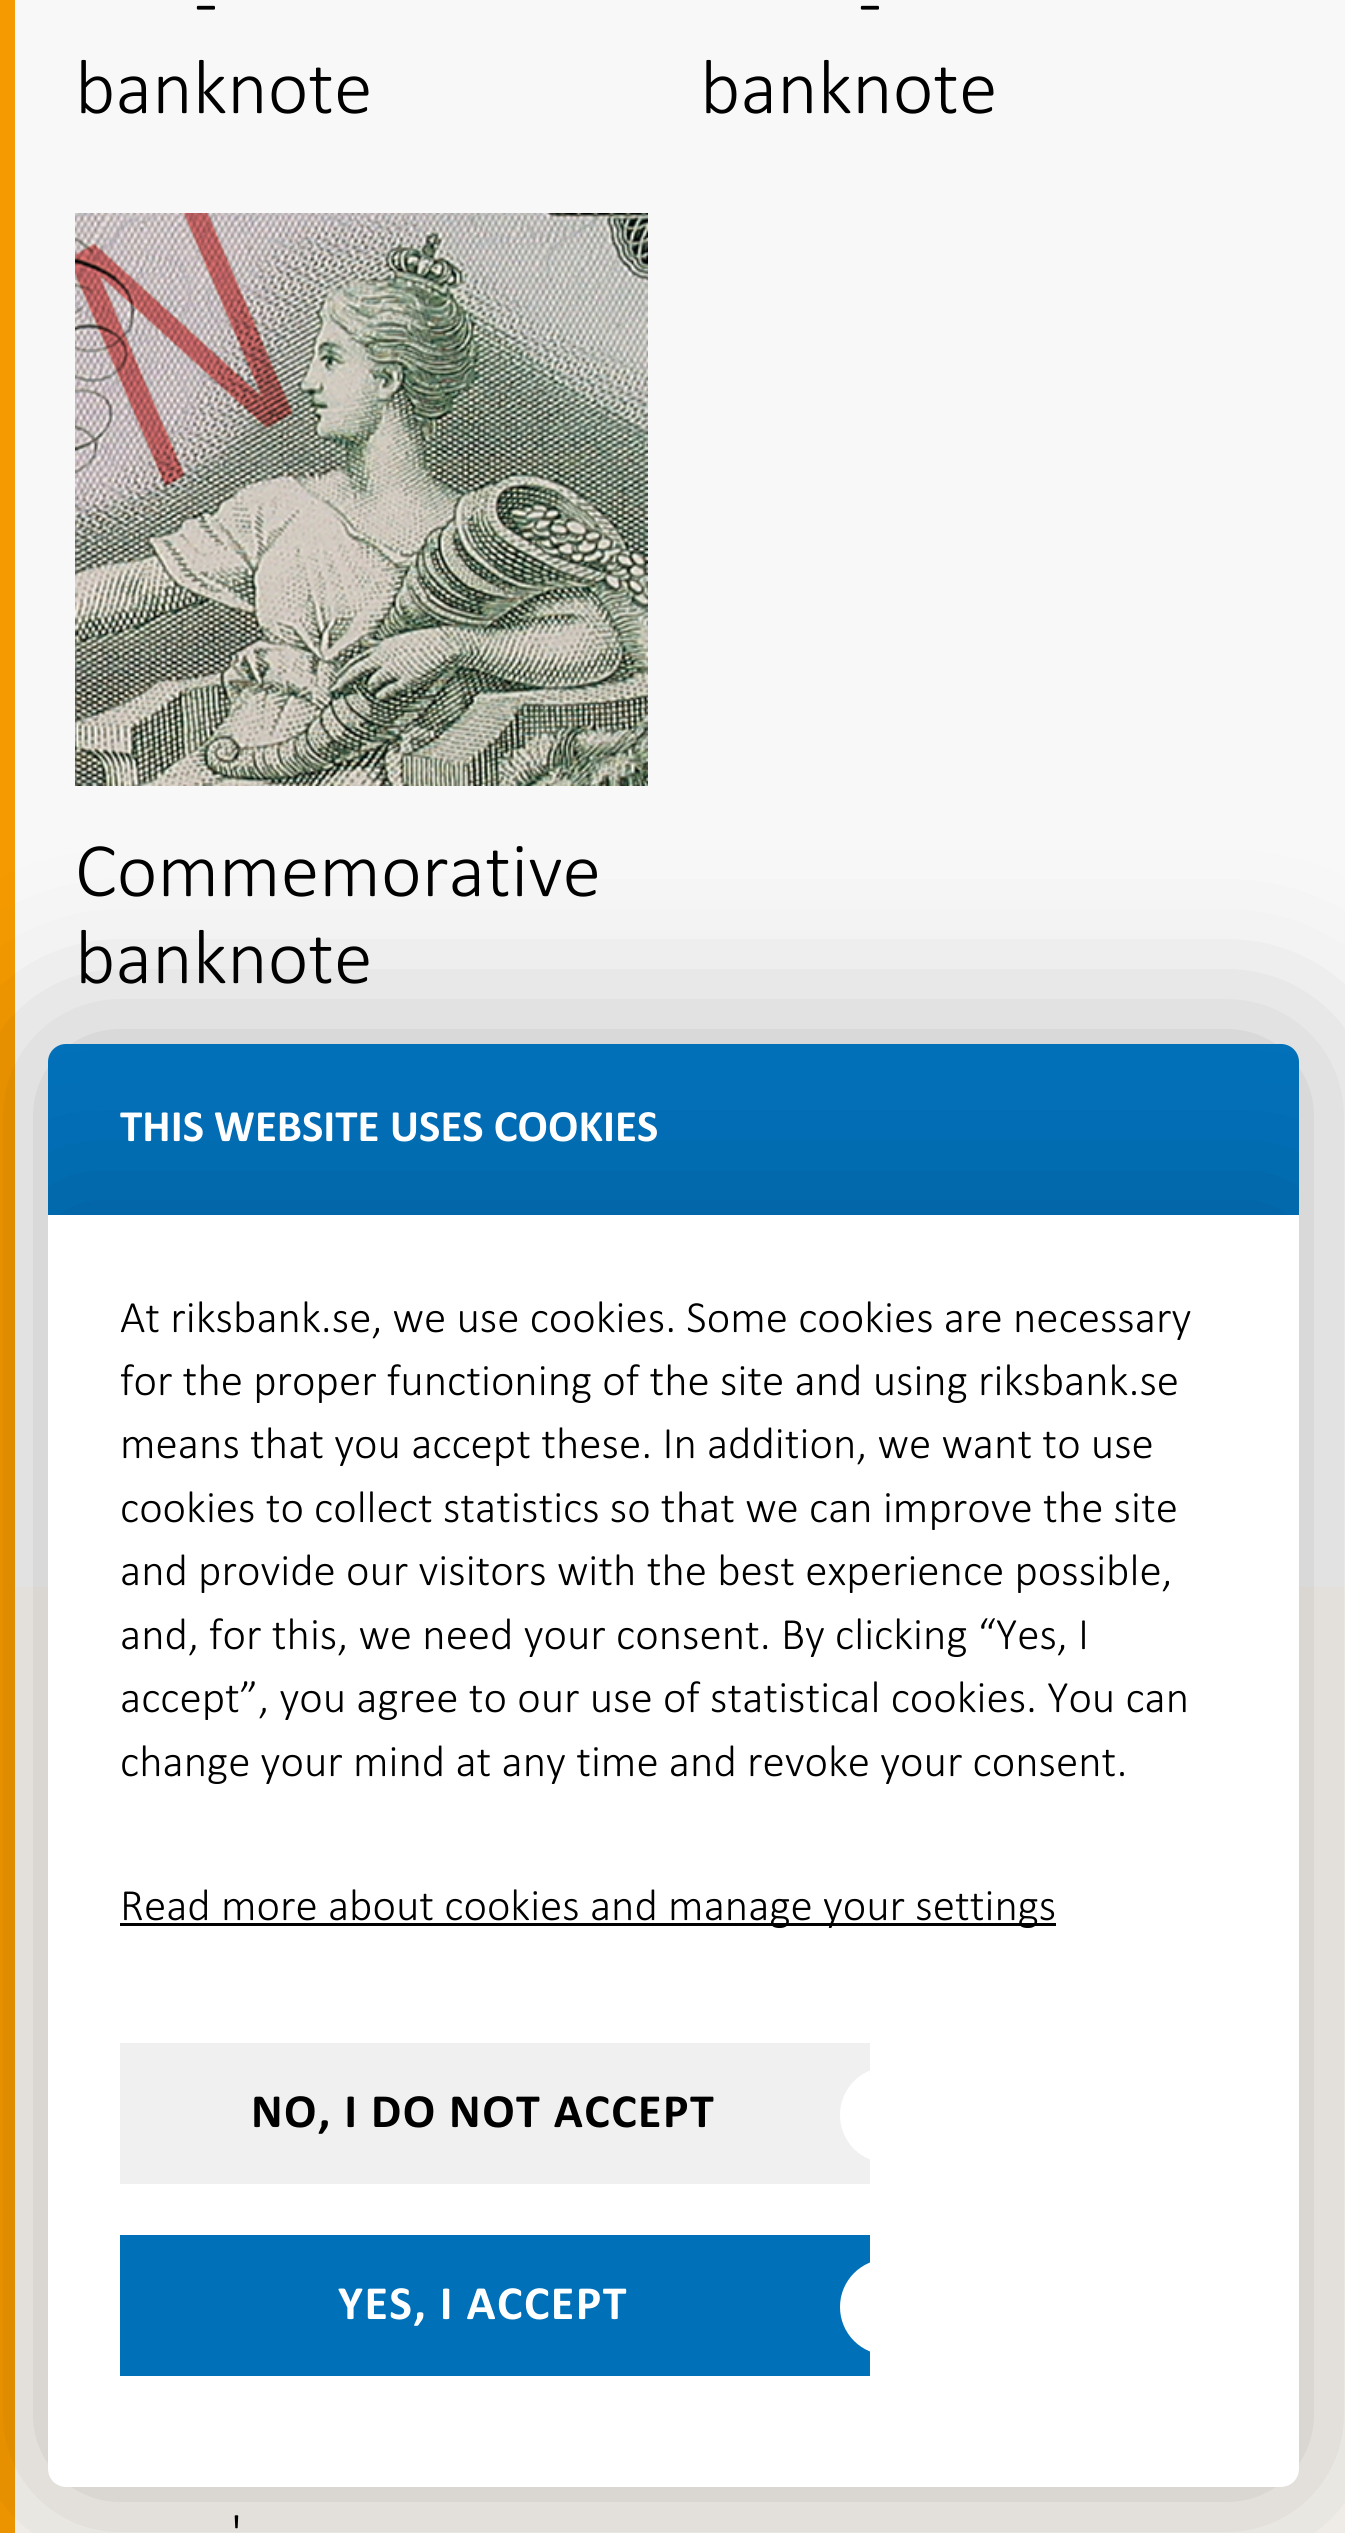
import math
import cairo



def draw_spaced(context, x, y, s, letter, word):
    context.move_to(x, y)
    for ch in s:
        context.show_text(ch)
        context.rel_move_to(letter + word * (ch == ' '), 0)


def rounded_rect(context, x, y, w, h, r):
    context.new_sub_path()
    for i, (u, v) in enumerate([(x + w - r, y + h - r), (x + r, y + h - r), (x + r, y + r), (x + w - r, y + r)]):
        context.arc(u, v, r, i * math.pi / 2, (i + 1) * math.pi / 2)
    context.close_path()


def draw_shadow(context, x, y, w, h, r, blur, alpha):
    context.push_group_with_content(cairo.Content.ALPHA)
    context.set_operator(cairo.Operator.SOURCE)
    for i in range(15, -16, -2):
        e = blur * i / 6
        if min(w, h) + 2 * e > 0:
            context.set_source_rgba(0, 0, 0, alpha * math.erfc((i - 1) / 8.5) / 2)
            rounded_rect(context, x - e, y - e, w + 2 * e, h + 2 * e, max(0, min(r + e + blur * .6, min(w, h) / 2 + e)))
            context.fill()
    context.mask(context.pop_group())


def draw_image(context, path, x, y, w, h):
    context.save()
    context.set_source_surface(cairo.ImageSurface.create_from_png(path), x, y)
    context.rectangle(x, y, w, h)
    context.fill()
    context.restore()


def draw(context):
    context.set_source_rgb(248 / 255, 248 / 255, 248 / 255)
    context.paint()
    context.set_source_rgb(245 / 255, 154 / 255, 0)
    context.rectangle(0, 0, 15, 2533)
    context.fill()
    draw_image(context, "images/1.png", 75, 213, 573, 573)
    context.set_source_rgb(249 / 255, 246 / 255, 241 / 255)
    context.rectangle(15, 1587, 1330, 946)
    context.fill()
    context.set_source_rgb(0, 0, 0)
    draw_shadow(context, 48, 1044, 1251, 1443, 18, 90, 0.25)
    context.set_source_rgb(2 / 255, 113 / 255, 186 / 255)
    context.new_path()
    context.move_to(66, 1044)
    context.line_to(1281, 1044)
    context.curve_to(1291, 1044, 1299, 1052, 1299, 1062)
    context.line_to(1299, 1215)
    context.line_to(48, 1215)
    context.line_to(48, 1062)
    context.curve_to(48, 1052, 56, 1044, 66, 1044)
    context.close_path()
    context.fill()
    context.save()
    rounded_rect(context, 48, 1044, 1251, 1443, 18)
    context.clip()
    context.set_source_rgb(0, 0, 0)
    draw_shadow(context, 48, 1215, 1251, 1272, 0, 90, 0.2)
    context.restore()
    context.set_source_rgb(1, 1, 1)
    context.new_path()
    context.move_to(48, 1215)
    context.line_to(1299, 1215)
    context.line_to(1299, 2469)
    context.curve_to(1299, 2479, 1291, 2487, 1281, 2487)
    context.line_to(66, 2487)
    context.curve_to(56, 2487, 48, 2479, 48, 2469)
    context.close_path()
    context.fill()
    context.set_source_rgb(0, 0, 0)
    context.rectangle(120, 1923, 936, 3)
    context.fill()
    context.set_source_rgb(240 / 255, 240 / 255, 240 / 255)
    context.rectangle(120, 2043, 750, 141)
    context.fill()
    context.set_source_rgb(1, 1, 1)
    context.arc(888, 2115, 46.5, 0, 2 * math.pi)
    context.fill_preserve()
    context.set_line_width(3)
    context.stroke()
    context.set_source_rgb(0, 113 / 255, 185 / 255)
    context.rectangle(120, 2235, 750, 141)
    context.fill()
    context.set_source_rgb(1, 1, 1)
    context.arc(888, 2307, 46.5, 0, 2 * math.pi)
    context.fill_preserve()
    context.stroke()
    context.select_font_face("Calibri Light")
    context.set_font_size(78)
    context.set_source_rgb(0, 0, 0)
    context.move_to(194, 27)
    context.show_text("-")
    context.move_to(75, 113)
    context.show_text("banknote")
    context.move_to(858, 27)
    context.show_text("-")
    context.move_to(700, 113)
    context.show_text("banknote")
    context.move_to(75, 896)
    context.show_text("Commemorative")
    context.move_to(75, 983)
    context.show_text("banknote")
    context.select_font_face("Calibri", cairo.FontSlant.NORMAL, cairo.FontWeight.BOLD)
    context.set_font_size(45)
    context.set_source_rgb(1, 1, 1)
    context.move_to(120, 1141)
    context.show_text("THIS WEBSITE USES COOKIES")
    context.select_font_face("Calibri Light")
    context.set_source_rgb(0, 0, 0)
    context.move_to(120, 1332)
    context.show_text("At riksbank.se, we use cookies. Some cookies are necessary")
    context.move_to(120, 1395)
    context.show_text("for the proper functioning of the site and using riksbank.se")
    context.move_to(120, 1458)
    context.show_text("means that you accept these. In addition, we want to use")
    context.move_to(120, 1522)
    context.show_text("cookies to collect statistics so that we can improve the site")
    context.move_to(120, 1585)
    context.show_text("and provide our visitors with the best experience possible,")
    context.move_to(120, 1649)
    context.show_text("and, for this, we need your consent. By clicking “Yes, I")
    context.move_to(120, 1712)
    context.show_text("accept”, you agree to our use of statistical cookies. You can")
    context.move_to(120, 1776)
    context.show_text("change your mind at any time and revoke your consent.")
    context.move_to(120, 1920)
    context.show_text("Read more about cookies and manage your settings")
    context.select_font_face("Calibri", cairo.FontSlant.NORMAL, cairo.FontWeight.BOLD)
    context.set_font_size(48)
    draw_spaced(context, 251, 2127, "NO, I DO NOT ACCEPT", 1.5, 0)
    context.set_source_rgb(1, 1, 1)
    draw_spaced(context, 338, 2319, "YES, I ACCEPT", 1.5, 0)
    context.select_font_face("Calibri Light")
    context.set_font_size(51)
    context.set_source_rgb(0, 0, 0)
    context.move_to(231, 2550)
    context.show_text("'")


surface = cairo.ImageSurface(cairo.Format.RGB24, 1345, 2533)
context = cairo.Context(surface)
options = cairo.FontOptions()
options.set_hint_metrics(cairo.HintMetrics.OFF)
options.set_hint_style(cairo.HintStyle.NONE)
context.set_font_options(options)
context.set_miter_limit(4)
draw(context)
surface.write_to_png("out.png")
